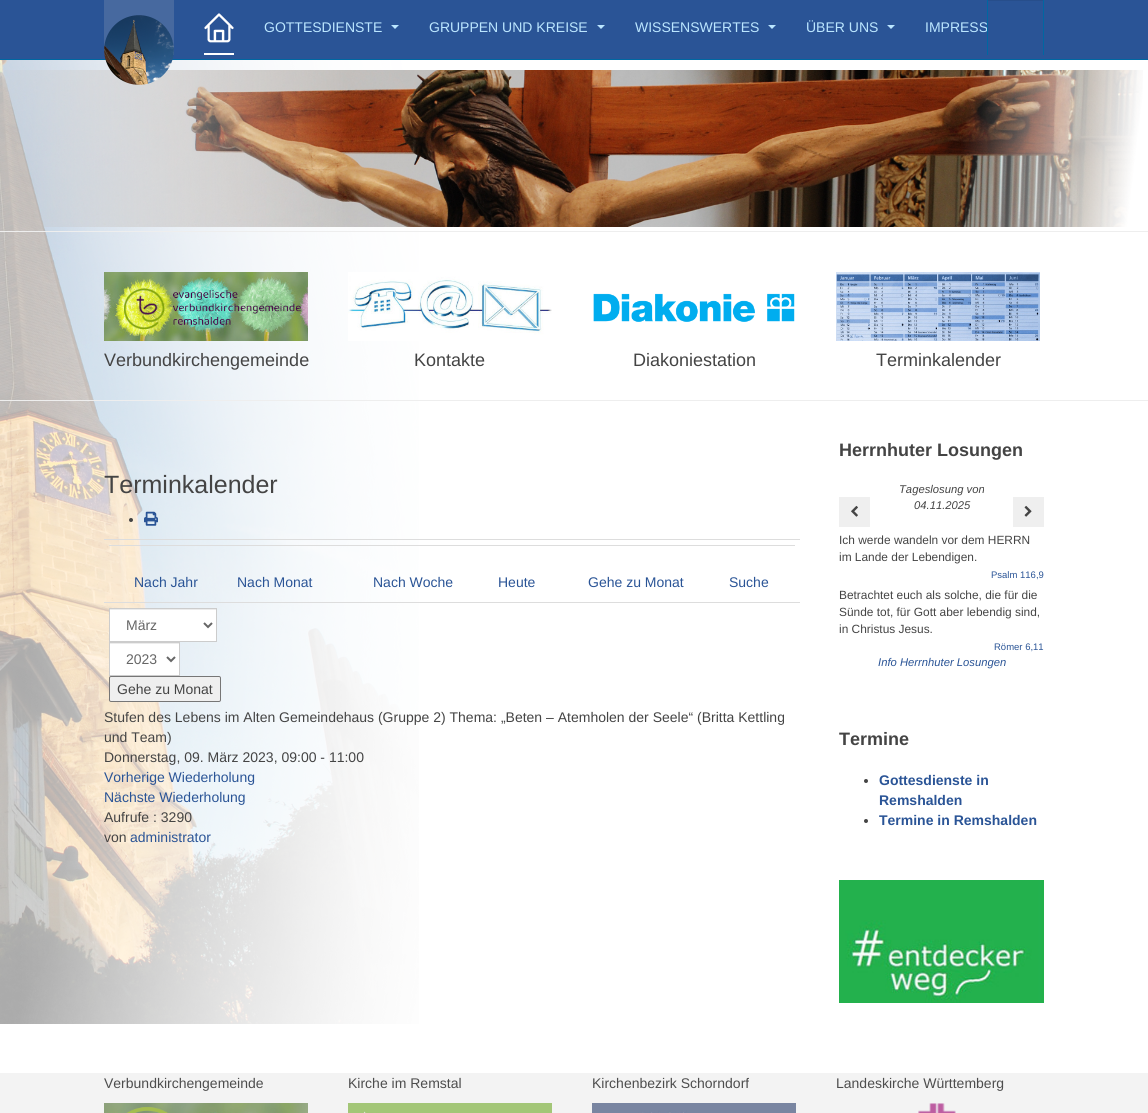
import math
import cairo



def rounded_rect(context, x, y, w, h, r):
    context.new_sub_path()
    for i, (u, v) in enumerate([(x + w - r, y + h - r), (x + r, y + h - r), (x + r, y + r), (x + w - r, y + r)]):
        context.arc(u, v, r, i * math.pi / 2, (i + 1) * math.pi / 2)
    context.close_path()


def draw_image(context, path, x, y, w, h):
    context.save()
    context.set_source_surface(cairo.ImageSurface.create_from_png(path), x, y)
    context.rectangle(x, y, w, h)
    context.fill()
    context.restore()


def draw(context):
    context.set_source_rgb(1, 1, 1)
    context.paint()
    draw_image(context, "images/1.png", 0, 60, 419, 964)
    context.set_source_rgb(42 / 255, 84 / 255, 150 / 255)
    context.rectangle(0, 0, 1148, 59)
    context.fill()
    context.set_source_rgb(0, 103 / 255, 162 / 255)
    context.rectangle(0, 59, 1148, 1)
    context.fill()
    context.set_source_rgb(71 / 255, 105 / 255, 159 / 255)
    context.rectangle(104, 0, 70, 55)
    context.fill()
    draw_image(context, "images/4.png", 4, 70, 1139, 157)
    draw_image(context, "images/2.png", 104, 15, 70, 70)
    context.set_source_rgb(0, 103 / 255, 162 / 255)
    context.rectangle(1043, 0, 1, 55)
    context.fill()
    context.set_source_rgb(39 / 255, 78 / 255, 139 / 255)
    context.rectangle(988, 0, 55, 1)
    context.fill()
    context.set_source_rgb(1, 1, 1)
    context.rectangle(204, 53, 30, 2)
    context.fill()
    draw_image(context, "images/3.png", 204, 13, 30, 30)
    context.set_source_rgb(187 / 255, 230 / 255, 1)
    context.new_path()
    context.move_to(391, 25)
    context.line_to(399, 25)
    context.line_to(395, 29)
    context.close_path()
    context.fill()
    context.new_path()
    context.move_to(597, 25)
    context.line_to(605, 25)
    context.line_to(601, 29)
    context.close_path()
    context.fill()
    context.new_path()
    context.move_to(768, 25)
    context.line_to(776, 25)
    context.line_to(772, 29)
    context.close_path()
    context.fill()
    context.new_path()
    context.move_to(887, 25)
    context.line_to(895, 25)
    context.line_to(891, 29)
    context.close_path()
    context.fill()
    context.set_source_rgb(238 / 255, 238 / 255, 238 / 255)
    context.rectangle(0, 231, 1148, 1)
    context.fill()
    context.rectangle(0, 400, 1148, 1)
    context.fill()
    draw_image(context, "images/5.png", 104, 272, 204, 69)
    draw_image(context, "images/6.png", 348, 272, 204, 69)
    draw_image(context, "images/7.png", 593, 293, 202, 29)
    draw_image(context, "images/8.png", 836, 272, 204, 69)
    context.set_source_rgb(68 / 255, 68 / 255, 68 / 255)
    context.arc(131, 520, 2, 0, 2 * math.pi)
    context.fill()
    draw_image(context, "images/9.png", 144, 511, 14, 15)
    context.set_source_rgb(221 / 255, 221 / 255, 221 / 255)
    context.rectangle(104, 539, 696, 1)
    context.fill()
    context.rectangle(109, 545, 686, 1)
    context.fill()
    context.rectangle(104, 602, 696, 1)
    context.fill()
    context.set_source_rgb(1, 1, 1)
    context.rectangle(110, 610, 106, 31)
    context.fill()
    context.set_source_rgb(236 / 255, 236 / 255, 236 / 255)
    context.rectangle(110, 609, 106, 1)
    context.fill()
    context.rectangle(109.5, 608.5, 107, 33)
    context.set_source_rgb(204 / 255, 204 / 255, 204 / 255)
    context.set_line_width(1)
    context.stroke()
    context.new_path()
    context.move_to(204, 623)
    context.line_to(208, 627)
    context.line_to(212, 623)
    context.set_source_rgb(102 / 255, 102 / 255, 102 / 255)
    context.set_line_width(2)
    context.stroke()
    context.set_source_rgb(1, 1, 1)
    context.rectangle(110, 644, 69, 31)
    context.fill()
    context.set_source_rgb(236 / 255, 236 / 255, 236 / 255)
    context.rectangle(110, 643, 69, 1)
    context.fill()
    context.rectangle(109.5, 642.5, 70, 33)
    context.set_source_rgb(204 / 255, 204 / 255, 204 / 255)
    context.set_line_width(1)
    context.stroke()
    context.new_path()
    context.move_to(167, 657)
    context.line_to(171, 661)
    context.line_to(175, 657)
    context.set_source_rgb(102 / 255, 102 / 255, 102 / 255)
    context.set_line_width(2)
    context.stroke()
    context.set_source_rgb(239 / 255, 239 / 255, 239 / 255)
    rounded_rect(context, 109.5, 676.5, 111, 25, 1.5)
    context.fill_preserve()
    context.set_source_rgb(118 / 255, 118 / 255, 118 / 255)
    context.set_line_width(1)
    context.stroke()
    context.set_source_rgb(239 / 255, 239 / 255, 239 / 255)
    context.rectangle(839, 497, 31, 30)
    context.fill()
    draw_image(context, "images/10.png", 851, 505, 7, 12)
    context.rectangle(1013, 497, 31, 30)
    context.fill()
    draw_image(context, "images/11.png", 1024, 505, 8, 12)
    context.set_source_rgb(68 / 255, 68 / 255, 68 / 255)
    context.arc(866, 781, 2, 0, 2 * math.pi)
    context.fill()
    context.arc(866, 821, 2, 0, 2 * math.pi)
    context.fill()
    draw_image(context, "images/12.png", 839, 880, 205, 123)
    context.set_source_rgb(243 / 255, 243 / 255, 243 / 255)
    context.rectangle(0, 1073, 1148, 40)
    context.fill()
    draw_image(context, "images/13.png", 104, 1103, 204, 10)
    draw_image(context, "images/14.png", 348, 1103, 204, 10)
    draw_image(context, "images/15.png", 592, 1103, 204, 10)
    draw_image(context, "images/16.png", 918, 1103, 38, 10)
    context.select_font_face("Liberation Sans")
    context.set_font_size(14)
    context.set_source_rgb(187 / 255, 230 / 255, 1)
    context.move_to(264, 32)
    context.show_text("GOTTESDIENSTE")
    context.move_to(429, 32)
    context.show_text("GRUPPEN UND KREISE")
    context.move_to(635, 32)
    context.show_text("WISSENSWERTES")
    context.move_to(806, 32)
    context.show_text("ÜBER UNS")
    context.move_to(925, 32)
    context.show_text("IMPRESS")
    context.set_source_rgb(0, 103 / 255, 162 / 255)
    context.rectangle(987, 0, 1, 55)
    context.fill()
    context.set_font_size(18)
    context.set_source_rgb(68 / 255, 68 / 255, 68 / 255)
    context.move_to(104, 366)
    context.show_text("Verbundkirchengemeinde")
    context.move_to(414, 366)
    context.show_text("Kontakte")
    context.move_to(633, 366)
    context.show_text("Diakoniestation")
    context.move_to(876, 366)
    context.show_text("Terminkalender")
    context.set_font_size(25)
    context.move_to(104, 493)
    context.show_text("Terminkalender")
    context.set_font_size(14)
    context.set_source_rgb(42 / 255, 84 / 255, 150 / 255)
    context.move_to(134, 587)
    context.show_text("Nach Jahr")
    context.move_to(237, 587)
    context.show_text("Nach Monat")
    context.move_to(373, 587)
    context.show_text("Nach Woche")
    context.move_to(498, 587)
    context.show_text("Heute")
    context.move_to(588, 587)
    context.show_text("Gehe zu Monat")
    context.move_to(729, 587)
    context.show_text("Suche")
    context.set_source_rgb(102 / 255, 102 / 255, 102 / 255)
    context.move_to(126, 630)
    context.show_text("März")
    context.move_to(126, 664)
    context.show_text("2023")
    context.set_source_rgb(68 / 255, 68 / 255, 68 / 255)
    context.move_to(117, 694)
    context.show_text("Gehe zu Monat")
    context.move_to(104, 722)
    context.show_text("Stufen des Lebens im Alten Gemeindehaus (Gruppe 2) Thema: „Beten – Atemholen der Seele“ (Britta Kettling")
    context.move_to(104, 742)
    context.show_text("und Team)")
    context.move_to(104, 762)
    context.show_text("Donnerstag, 09. März 2023, 09:00 - 11:00")
    context.set_source_rgb(42 / 255, 84 / 255, 150 / 255)
    context.move_to(104, 782)
    context.show_text("Vorherige Wiederholung")
    context.move_to(104, 802)
    context.show_text("Nächste Wiederholung")
    context.set_source_rgb(68 / 255, 68 / 255, 68 / 255)
    context.move_to(104, 822)
    context.show_text("Aufrufe : 3290")
    context.move_to(104, 842)
    context.show_text("von")
    context.set_source_rgb(42 / 255, 84 / 255, 150 / 255)
    context.move_to(130, 842)
    context.show_text("administrator")
    context.select_font_face("Liberation Sans", cairo.FontSlant.NORMAL, cairo.FontWeight.BOLD)
    context.set_font_size(18)
    context.set_source_rgb(68 / 255, 68 / 255, 68 / 255)
    context.move_to(839, 456)
    context.show_text("Herrnhuter Losungen")
    context.select_font_face("Liberation Sans", cairo.FontSlant.ITALIC)
    context.set_font_size(11.25)
    context.move_to(899, 493)
    context.show_text("Tageslosung von")
    context.move_to(914, 509)
    context.show_text("04.11.2025")
    context.select_font_face("Liberation Sans")
    context.set_font_size(11.9)
    context.move_to(839, 544)
    context.show_text("Ich werde wandeln vor dem HERRN")
    context.move_to(839, 561)
    context.show_text("im Lande der Lebendigen.")
    context.set_font_size(9.5)
    context.set_source_rgb(42 / 255, 84 / 255, 150 / 255)
    context.move_to(991, 578)
    context.show_text("Psalm 116,9")
    context.set_font_size(11.9)
    context.set_source_rgb(68 / 255, 68 / 255, 68 / 255)
    context.move_to(839, 599)
    context.show_text("Betrachtet euch als solche, die für die")
    context.move_to(839, 616)
    context.show_text("Sünde tot, für Gott aber lebendig sind,")
    context.move_to(839, 633)
    context.show_text("in Christus Jesus.")
    context.set_font_size(9.5)
    context.set_source_rgb(42 / 255, 84 / 255, 150 / 255)
    context.move_to(994, 650)
    context.show_text("Römer 6,11")
    context.select_font_face("Liberation Sans", cairo.FontSlant.ITALIC)
    context.set_font_size(11.25)
    context.move_to(878, 666)
    context.show_text("Info Herrnhuter Losungen")
    context.select_font_face("Liberation Sans", cairo.FontSlant.NORMAL, cairo.FontWeight.BOLD)
    context.set_font_size(18)
    context.set_source_rgb(68 / 255, 68 / 255, 68 / 255)
    context.move_to(839, 745)
    context.show_text("Termine")
    context.set_font_size(14)
    context.set_source_rgb(42 / 255, 84 / 255, 150 / 255)
    context.move_to(879, 785)
    context.show_text("Gottesdienste in")
    context.move_to(879, 805)
    context.show_text("Remshalden")
    context.move_to(879, 825)
    context.show_text("Termine in Remshalden")
    context.select_font_face("Liberation Sans")
    context.set_source_rgb(77 / 255, 77 / 255, 77 / 255)
    context.move_to(104, 1088)
    context.show_text("Verbundkirchengemeinde")
    context.move_to(348, 1088)
    context.show_text("Kirche im Remstal")
    context.move_to(592, 1088)
    context.show_text("Kirchenbezirk Schorndorf")
    context.move_to(836, 1088)
    context.show_text("Landeskirche Württemberg")


surface = cairo.ImageSurface(cairo.Format.RGB24, 1148, 1113)
context = cairo.Context(surface)
options = cairo.FontOptions()
options.set_hint_metrics(cairo.HintMetrics.OFF)
options.set_hint_style(cairo.HintStyle.NONE)
context.set_font_options(options)
context.set_miter_limit(4)
draw(context)
surface.write_to_png("out.png")
